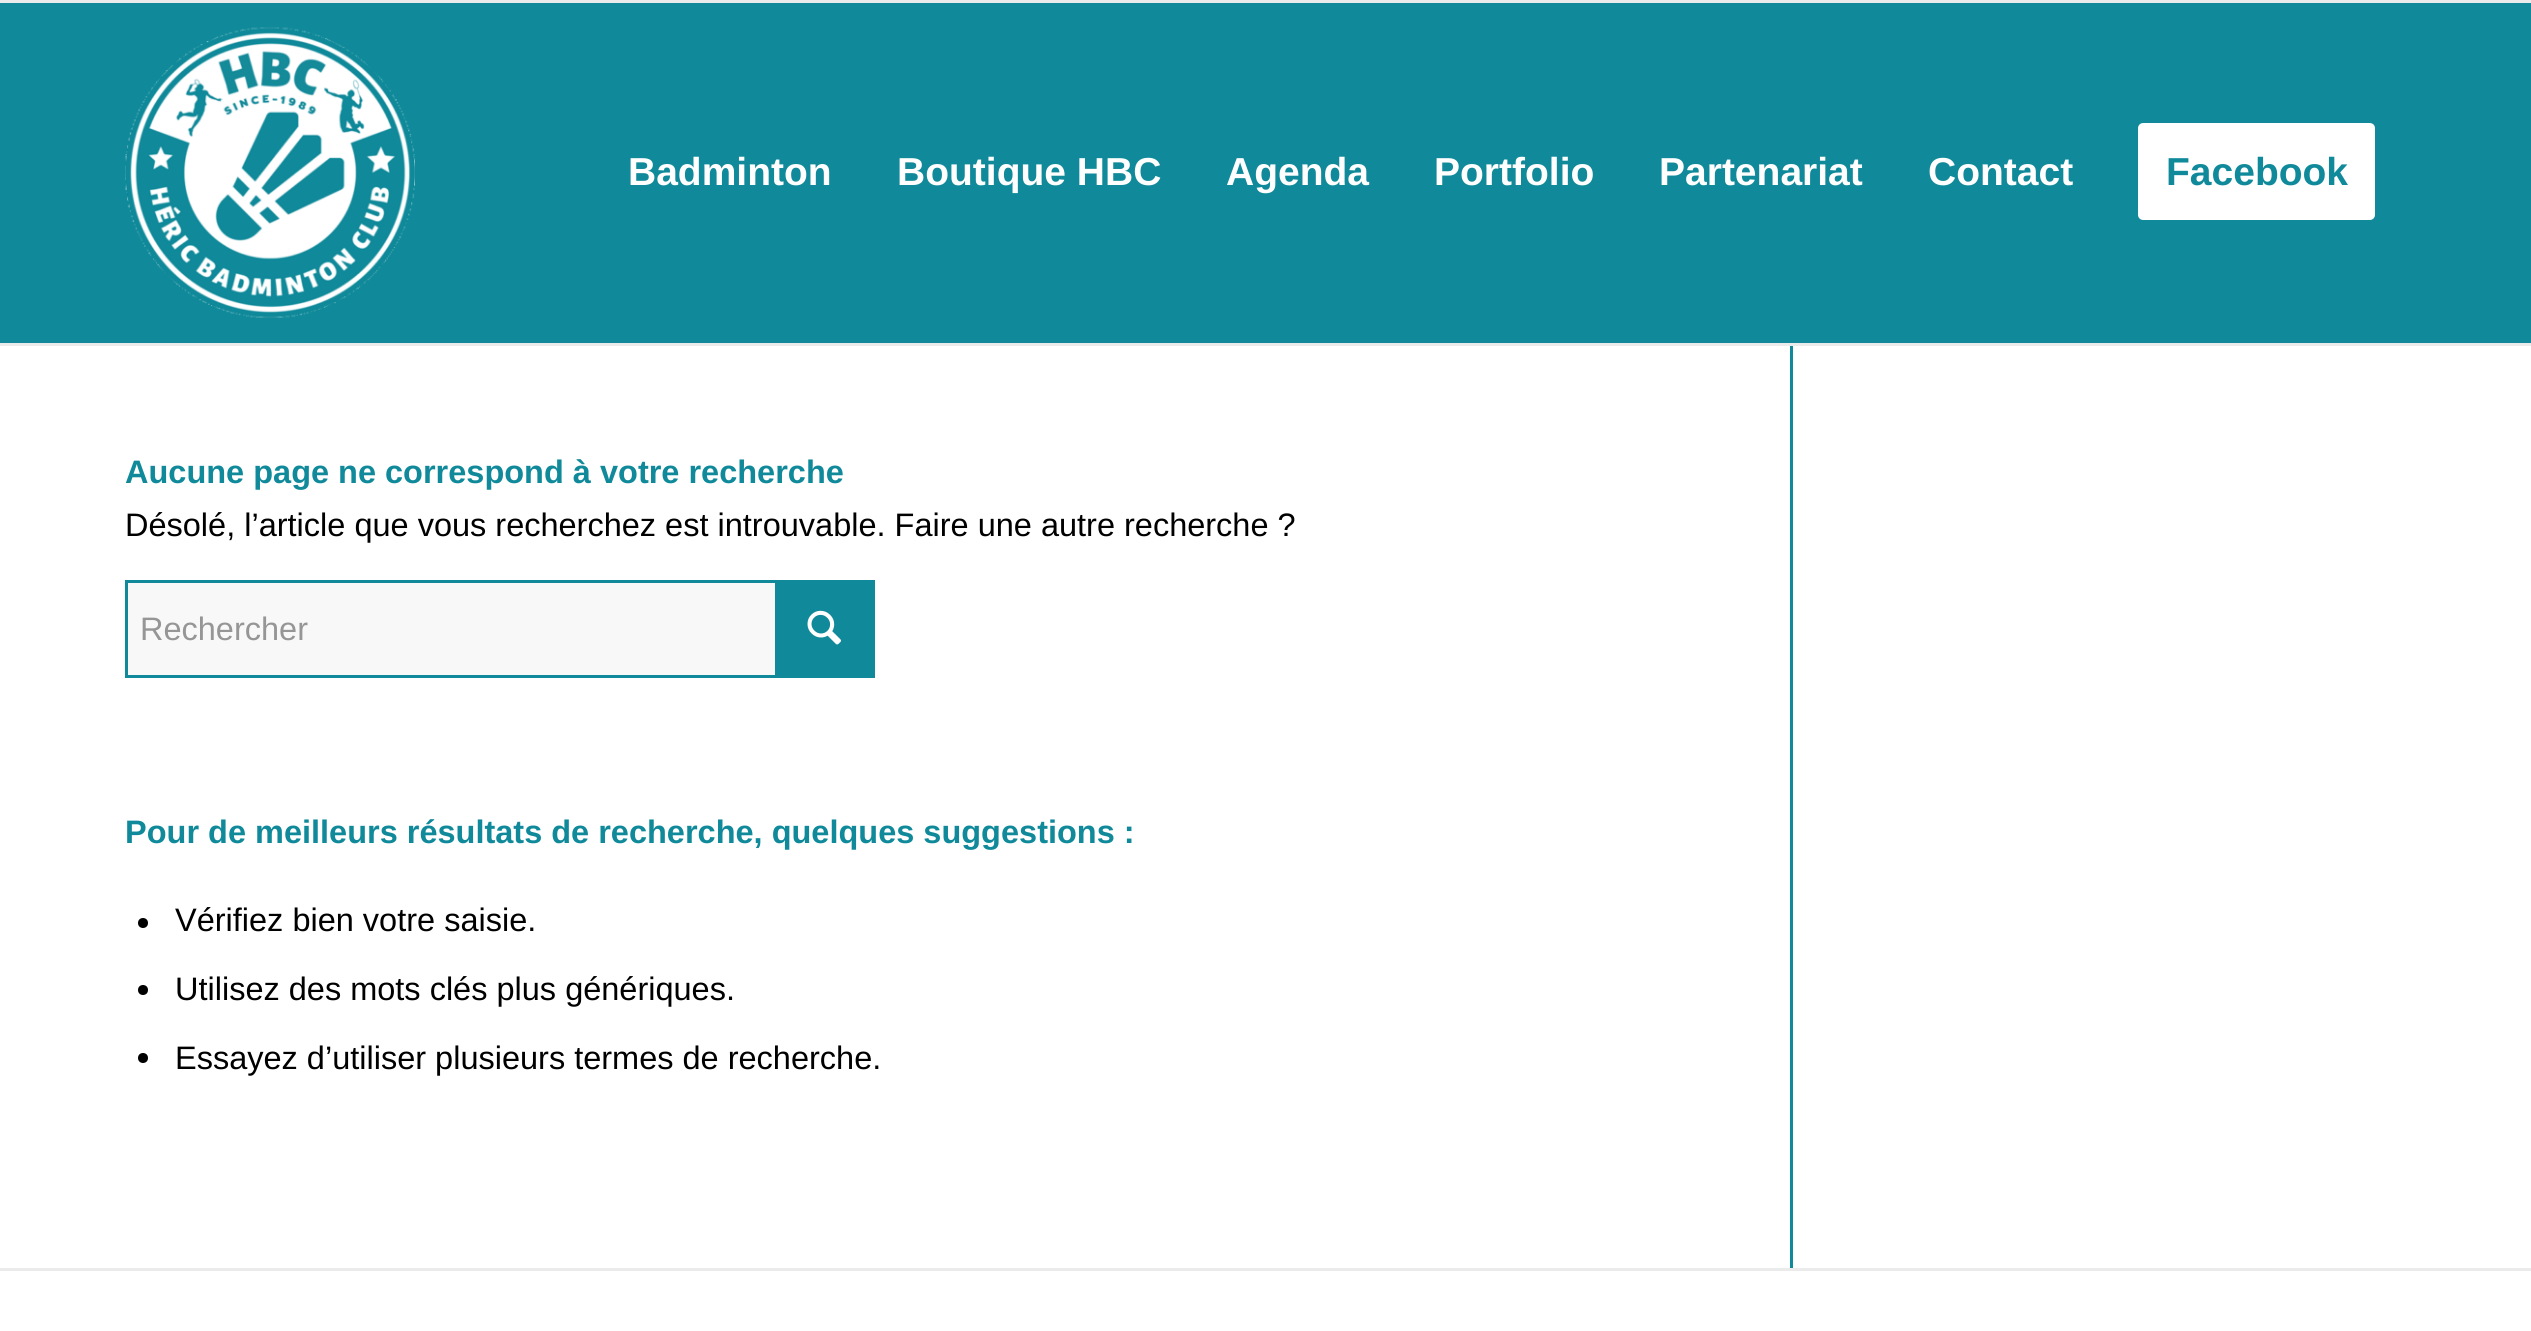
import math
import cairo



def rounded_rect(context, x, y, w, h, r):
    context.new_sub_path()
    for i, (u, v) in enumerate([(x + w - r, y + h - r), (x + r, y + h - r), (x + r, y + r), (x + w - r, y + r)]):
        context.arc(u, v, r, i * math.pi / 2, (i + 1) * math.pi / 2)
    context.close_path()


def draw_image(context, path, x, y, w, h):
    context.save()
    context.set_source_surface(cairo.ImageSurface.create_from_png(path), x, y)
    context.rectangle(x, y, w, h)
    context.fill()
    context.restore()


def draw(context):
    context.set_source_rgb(1, 1, 1)
    context.paint()
    context.set_source_rgb(16 / 255, 138 / 255, 154 / 255)
    context.rectangle(0, 3, 2531, 340)
    context.fill()
    context.set_source_rgb(235 / 255, 235 / 255, 235 / 255)
    context.rectangle(0, 0, 2531, 3)
    context.fill()
    context.rectangle(0, 343, 2531, 3)
    context.fill()
    draw_image(context, "images/1.png", 125, 27, 290, 291)
    context.set_source_rgb(1, 1, 1)
    rounded_rect(context, 2140.5, 125.5, 232, 92, 2.5)
    context.fill_preserve()
    context.set_line_width(5)
    context.stroke()
    context.set_source_rgb(16 / 255, 138 / 255, 154 / 255)
    context.rectangle(1790, 346, 3, 922)
    context.fill()
    context.set_source_rgb(248 / 255, 248 / 255, 248 / 255)
    context.rectangle(128, 583, 647, 92)
    context.fill()
    context.rectangle(126.5, 581.5, 747, 95)
    context.set_source_rgb(16 / 255, 138 / 255, 154 / 255)
    context.set_line_width(3)
    context.stroke()
    context.rectangle(775, 583, 97, 92)
    context.fill()
    draw_image(context, "images/2.png", 807, 610, 34, 35)
    context.set_source_rgb(0, 0, 0)
    context.arc(143, 923, 5, 0, 2 * math.pi)
    context.fill()
    context.arc(143, 990, 5, 0, 2 * math.pi)
    context.fill()
    context.arc(143, 1058, 5, 0, 2 * math.pi)
    context.fill()
    context.set_source_rgb(235 / 255, 235 / 255, 235 / 255)
    context.rectangle(0, 1268, 2531, 3)
    context.fill()
    context.select_font_face("Liberation Sans", cairo.FontSlant.NORMAL, cairo.FontWeight.BOLD)
    context.set_font_size(39)
    context.set_source_rgb(1, 1, 1)
    context.move_to(628, 185)
    context.show_text("Badminton")
    context.move_to(897, 185)
    context.show_text("Boutique HBC")
    context.move_to(1226, 185)
    context.show_text("Agenda")
    context.move_to(1434, 185)
    context.show_text("Portfolio")
    context.move_to(1659, 185)
    context.show_text("Partenariat")
    context.move_to(1928, 185)
    context.show_text("Contact")
    context.set_source_rgb(16 / 255, 138 / 255, 154 / 255)
    context.move_to(2166, 185)
    context.show_text("Facebook")
    context.set_font_size(32.5)
    context.move_to(125, 483)
    context.show_text("Aucune page ne correspond à votre recherche")
    context.select_font_face("Liberation Sans")
    context.set_source_rgb(0, 0, 0)
    context.move_to(125, 536)
    context.show_text("Désolé, l’article que vous recherchez est introuvable. Faire une autre recherche ?")
    context.set_source_rgb(150 / 255, 150 / 255, 150 / 255)
    context.move_to(140, 640)
    context.show_text("Rechercher")
    context.select_font_face("Liberation Sans", cairo.FontSlant.NORMAL, cairo.FontWeight.BOLD)
    context.set_source_rgb(16 / 255, 138 / 255, 154 / 255)
    context.move_to(125, 843)
    context.show_text("Pour de meilleurs résultats de recherche, quelques suggestions :")
    context.select_font_face("Liberation Sans")
    context.set_source_rgb(0, 0, 0)
    context.move_to(175, 931)
    context.show_text("Vérifiez bien votre saisie.")
    context.move_to(175, 1000)
    context.show_text("Utilisez des mots clés plus génériques.")
    context.move_to(175, 1069)
    context.show_text("Essayez d’utiliser plusieurs termes de recherche.")


surface = cairo.ImageSurface(cairo.Format.RGB24, 2531, 1331)
context = cairo.Context(surface)
options = cairo.FontOptions()
options.set_hint_metrics(cairo.HintMetrics.OFF)
options.set_hint_style(cairo.HintStyle.NONE)
context.set_font_options(options)
context.set_miter_limit(4)
draw(context)
surface.write_to_png("out.png")
